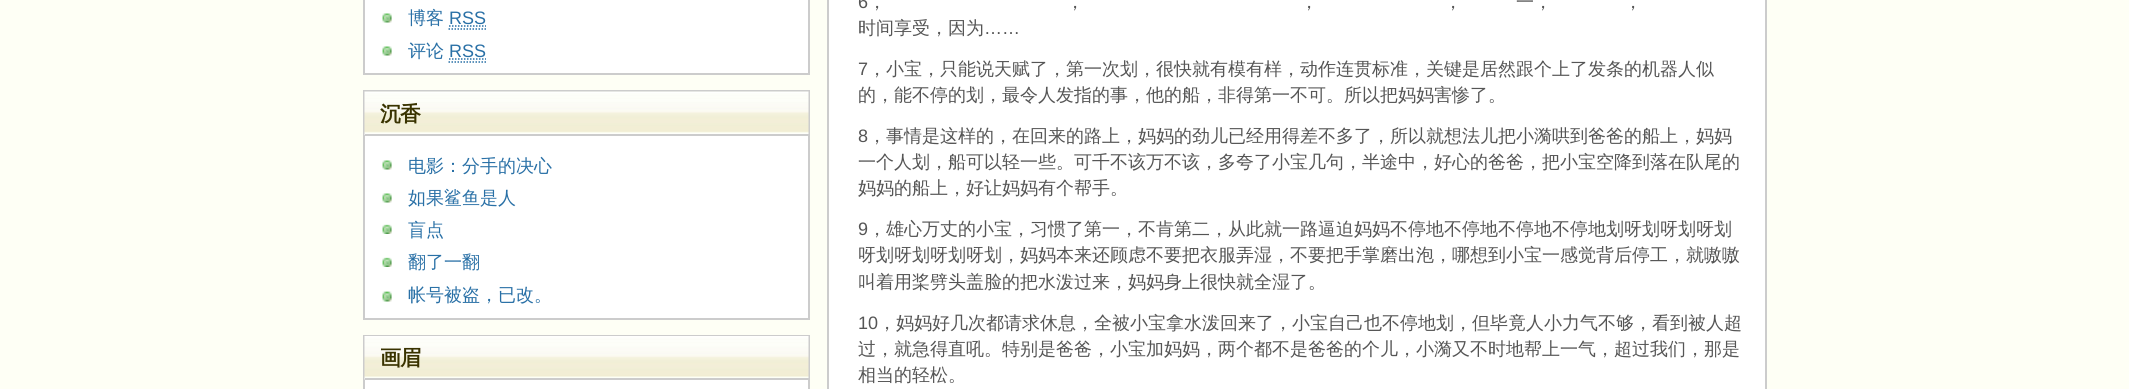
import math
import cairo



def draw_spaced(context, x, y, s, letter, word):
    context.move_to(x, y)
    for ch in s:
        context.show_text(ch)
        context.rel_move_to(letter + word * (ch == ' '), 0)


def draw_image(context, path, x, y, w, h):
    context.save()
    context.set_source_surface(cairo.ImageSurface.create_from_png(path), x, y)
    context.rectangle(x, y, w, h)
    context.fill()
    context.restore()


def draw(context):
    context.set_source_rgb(254 / 255, 1, 245 / 255)
    context.paint()
    context.set_source_rgb(1, 1, 1)
    context.rectangle(364, -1, 445, 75)
    context.fill_preserve()
    context.set_source_rgb(204 / 255, 204 / 255, 204 / 255)
    context.stroke()
    draw_image(context, "images/1.png", 382, 13, 10, 10)
    context.new_path()
    context.move_to(448.5, 29)
    context.line_to(486, 29)
    context.move_to(449, 26)
    context.line_to(486, 26)
    context.set_source_rgb(41 / 255, 112 / 255, 166 / 255)
    context.set_line_width(1.5)
    context.set_dash([1.5, 1.5])
    context.stroke()
    draw_image(context, "images/1.png", 382, 46, 10, 10)
    context.new_path()
    context.move_to(448.5, 62)
    context.line_to(486, 62)
    context.move_to(449, 59)
    context.line_to(486, 59)
    context.stroke()
    context.set_source_rgb(1, 1, 1)
    context.rectangle(365, 136, 443, 182)
    context.fill()
    context.rectangle(364, 91, 445, 228)
    context.set_source_rgb(204 / 255, 204 / 255, 204 / 255)
    context.set_line_width(2)
    context.set_dash([])
    context.stroke()
    draw_image(context, "images/2.png", 364, 91, 445, 44)
    context.rectangle(365, 134, 444, 2)
    context.fill()
    draw_image(context, "images/1.png", 382, 160, 10, 10)
    draw_image(context, "images/1.png", 382, 193, 10, 10)
    draw_image(context, "images/3.png", 382, 224, 10, 10)
    draw_image(context, "images/3.png", 382, 257, 10, 10)
    draw_image(context, "images/4.png", 382, 291, 10, 11)
    context.set_source_rgb(1, 1, 1)
    context.rectangle(365, 380, 443, 9)
    context.fill()
    context.rectangle(364, 336, 445, 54)
    context.set_source_rgb(204 / 255, 204 / 255, 204 / 255)
    context.stroke()
    draw_image(context, "images/5.png", 364, 336, 445, 44)
    context.rectangle(365, 378, 444, 2)
    context.fill()
    context.set_source_rgb(1, 1, 1)
    context.rectangle(828, -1, 938, 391)
    context.fill_preserve()
    context.set_source_rgb(204 / 255, 204 / 255, 204 / 255)
    context.stroke()
    context.select_font_face("WenQuanYi Zen Hei Medium")
    context.set_font_size(18)
    context.set_source_rgb(41 / 255, 112 / 255, 166 / 255)
    context.move_to(408, 24)
    context.show_text("博客")
    context.select_font_face("Liberation Sans")
    context.move_to(449, 24)
    context.show_text("RSS")
    context.select_font_face("WenQuanYi Zen Hei Medium")
    context.move_to(408, 57)
    context.show_text("评论")
    context.select_font_face("Liberation Sans")
    context.move_to(449, 57)
    context.show_text("RSS")
    context.select_font_face("WenQuanYi Zen Hei", cairo.FontSlant.NORMAL, cairo.FontWeight.BOLD)
    context.set_font_size(21)
    context.set_source_rgb(57 / 255, 51 / 255, 0)
    draw_spaced(context, 380, 121, "沉香", -1, 0)
    context.select_font_face("WenQuanYi Zen Hei Medium")
    context.set_font_size(18)
    context.set_source_rgb(41 / 255, 112 / 255, 166 / 255)
    context.move_to(408, 172)
    context.show_text("电影：分手的决心")
    context.move_to(408, 204)
    context.show_text("如果鲨鱼是人")
    context.move_to(408, 236)
    context.show_text("盲点")
    context.move_to(408, 268)
    context.show_text("翻了一翻")
    context.move_to(408, 301)
    context.show_text("帐号被盗，已改。")
    context.select_font_face("WenQuanYi Zen Hei", cairo.FontSlant.NORMAL, cairo.FontWeight.BOLD)
    context.set_font_size(21)
    context.set_source_rgb(57 / 255, 51 / 255, 0)
    draw_spaced(context, 380, 365, "画眉", -1, 0)
    context.select_font_face("Liberation Sans")
    context.set_font_size(18)
    context.set_source_rgb(85 / 255, 85 / 255, 85 / 255)
    context.move_to(858, 8)
    context.show_text("6")
    context.select_font_face("WenQuanYi Zen Hei Medium")
    context.move_to(868, 8)
    context.show_text("，")
    context.move_to(1066, 8)
    context.show_text("，")
    context.move_to(1300, 8)
    context.show_text("，")
    context.move_to(1444, 8)
    context.show_text("，")
    context.move_to(1516, 8)
    context.show_text("一，")
    context.move_to(1624, 8)
    context.show_text("，")
    context.move_to(858, 34)
    context.show_text("时间享受，因为")
    context.select_font_face("Liberation Sans")
    context.move_to(984, 34)
    context.show_text("……")
    context.move_to(858, 75)
    context.show_text("7")
    context.select_font_face("WenQuanYi Zen Hei Medium")
    context.move_to(868, 75)
    context.show_text("，小宝，只能说天赋了，第一次划，很快就有模有样，动作连贯标准，关键是居然跟个上了发条的机器人似")
    context.move_to(858, 101)
    context.show_text("的，能不停的划，最令人发指的事，他的船，非得第一不可。所以把妈妈害惨了。")
    context.select_font_face("Liberation Sans")
    context.move_to(858, 142)
    context.show_text("8")
    context.select_font_face("WenQuanYi Zen Hei Medium")
    context.move_to(868, 142)
    context.show_text("，事情是这样的，在回来的路上，妈妈的劲儿已经用得差不多了，所以就想法儿把小漪哄到爸爸的船上，妈妈")
    context.move_to(858, 168)
    context.show_text("一个人划，船可以轻一些。可千不该万不该，多夸了小宝几句，半途中，好心的爸爸，把小宝空降到落在队尾的")
    context.move_to(858, 194)
    context.show_text("妈妈的船上，好让妈妈有个帮手。")
    context.select_font_face("Liberation Sans")
    context.move_to(858, 235)
    context.show_text("9")
    context.select_font_face("WenQuanYi Zen Hei Medium")
    context.move_to(868, 235)
    context.show_text("，雄心万丈的小宝，习惯了第一，不肯第二，从此就一路逼迫妈妈不停地不停地不停地不停地划呀划呀划呀划")
    context.move_to(858, 261)
    context.show_text("呀划呀划呀划呀划，妈妈本来还顾虑不要把衣服弄湿，不要把手掌磨出泡，哪想到小宝一感觉背后停工，就嗷嗷")
    context.move_to(858, 288)
    context.show_text("叫着用桨劈头盖脸的把水泼过来，妈妈身上很快就全湿了。")
    context.select_font_face("Liberation Sans")
    context.move_to(858, 329)
    context.show_text("10")
    context.select_font_face("WenQuanYi Zen Hei Medium")
    context.move_to(878, 329)
    context.show_text("，妈妈好几次都请求休息，全被小宝拿水泼回来了，小宝自己也不停地划，但毕竟人小力气不够，看到被人超")
    context.move_to(858, 355)
    context.show_text("过，就急得直吼。特别是爸爸，小宝加妈妈，两个都不是爸爸的个儿，小漪又不时地帮上一气，超过我们，那是")
    context.move_to(858, 381)
    context.show_text("相当的轻松。")


surface = cairo.ImageSurface(cairo.Format.RGB24, 2129, 389)
context = cairo.Context(surface)
options = cairo.FontOptions()
options.set_hint_metrics(cairo.HintMetrics.OFF)
options.set_hint_style(cairo.HintStyle.NONE)
context.set_font_options(options)
context.set_miter_limit(4)
draw(context)
surface.write_to_png("out.png")
